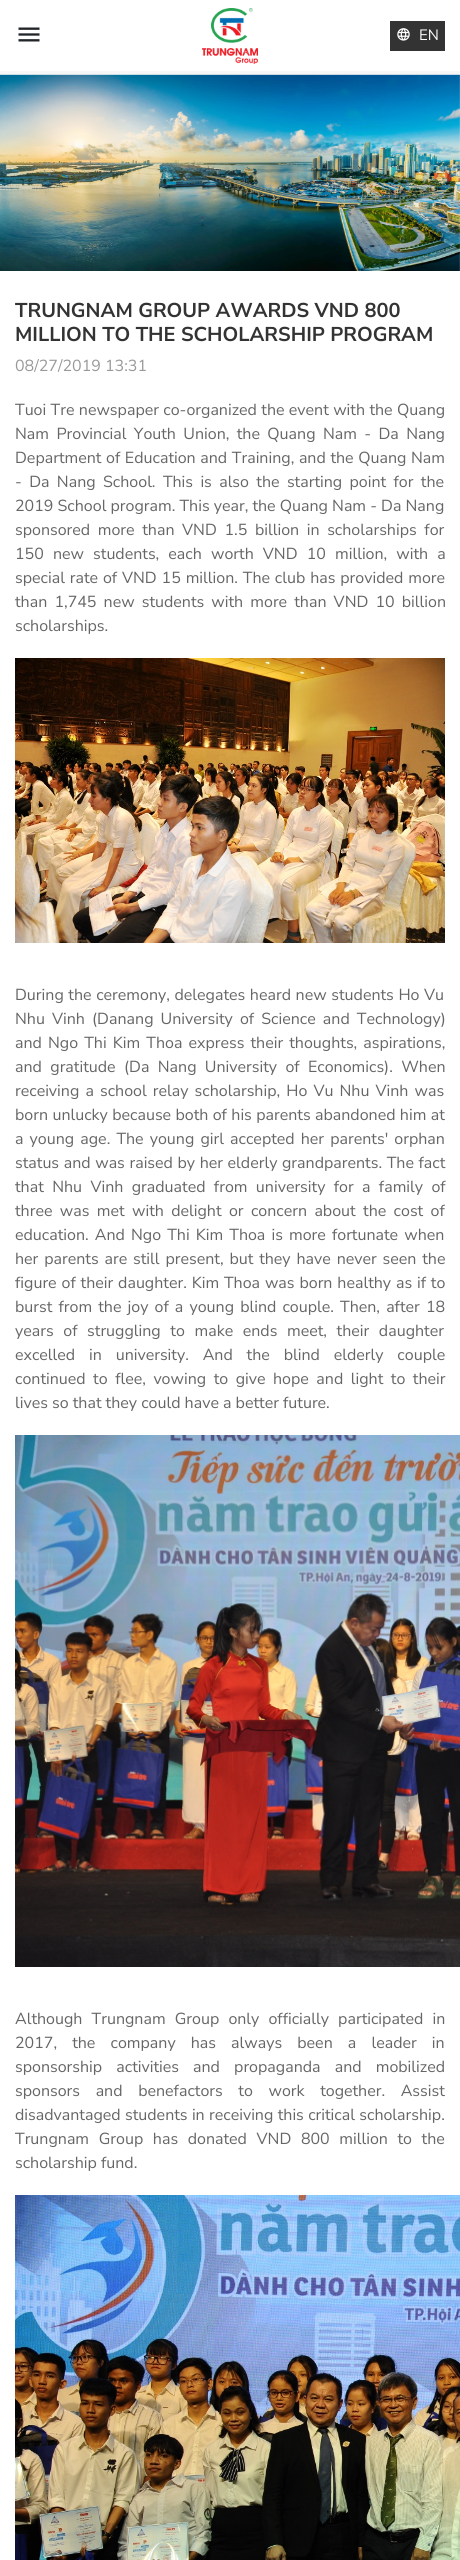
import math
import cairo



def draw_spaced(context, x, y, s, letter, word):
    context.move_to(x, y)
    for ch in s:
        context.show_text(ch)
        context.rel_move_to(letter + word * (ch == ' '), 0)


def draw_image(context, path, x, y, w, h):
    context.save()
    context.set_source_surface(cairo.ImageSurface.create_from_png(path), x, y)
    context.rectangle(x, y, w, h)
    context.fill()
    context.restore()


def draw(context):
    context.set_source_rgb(1, 1, 1)
    context.paint()
    draw_image(context, "images/1.png", 18, 27, 22, 15)
    draw_image(context, "images/2.png", 202, 8, 56, 56)
    context.set_source_rgb(51 / 255, 51 / 255, 51 / 255)
    context.rectangle(390, 21, 55, 30)
    context.fill()
    draw_image(context, "images/3.png", 397, 28, 13, 13)
    draw_image(context, "images/4.png", 0, 71, 460, 200)
    draw_image(context, "images/5.png", 15, 658, 430, 285)
    draw_image(context, "images/6.png", 15, 1435, 445, 532)
    draw_image(context, "images/7.png", 15, 2195, 445, 365)
    context.select_font_face("Nunito Sans")
    context.set_font_size(15)
    context.set_source_rgb(1, 1, 1)
    context.move_to(419, 40)
    context.show_text("EN")
    context.select_font_face("Nunito Sans", cairo.FontSlant.NORMAL, cairo.FontWeight.BOLD)
    context.set_font_size(20)
    context.set_source_rgb(51 / 255, 51 / 255, 51 / 255)
    context.move_to(15, 317)
    context.show_text("TRUNGNAM GROUP AWARDS VND 800")
    context.move_to(15, 341)
    context.show_text("MILLION TO THE SCHOLARSHIP PROGRAM")
    context.select_font_face("Nunito Sans")
    context.set_font_size(16)
    context.set_source_rgb(153 / 255, 153 / 255, 153 / 255)
    context.move_to(15, 371)
    context.show_text("08/27/2019 13:31")
    context.set_source_rgb(102 / 255, 102 / 255, 102 / 255)
    draw_spaced(context, 15, 415, "Tuoi Tre newspaper co-organized the event with the Quang", 0, 0.25)
    draw_spaced(context, 15, 439, "Nam Provincial Youth Union, the Quang Nam - Da Nang", 0, 3.25)
    draw_spaced(context, 15, 463, "Department of Education and Training, and the Quang Nam", 0, 0.5)
    draw_spaced(context, 15, 487, "- Da Nang School. This is also the starting point for the", 0, 3.25)
    context.move_to(15, 511)
    context.show_text("2019 School program. This year, the Quang Nam - Da Nang")
    draw_spaced(context, 15, 535, "sponsored more than VND 1.5 billion in scholarships for", 0, 3.5)
    draw_spaced(context, 15, 559, "150 new students, each worth VND 10 million, with a", 0, 5)
    draw_spaced(context, 15, 583, "special rate of VND 15 million. The club has provided more", 0, 0.75)
    draw_spaced(context, 15, 607, "than 1,745 new students with more than VND 10 billion", 0, 3)
    context.move_to(15, 631)
    context.show_text("scholarships.")
    draw_spaced(context, 15, 1000, "During the ceremony, delegates heard new students Ho Vu", 0, 0.5)
    draw_spaced(context, 15, 1024, "Nhu Vinh (Danang University of Science and Technology)", 0, 3)
    draw_spaced(context, 15, 1048, "and Ngo Thi Kim Thoa express their thoughts, aspirations,", 0, 2)
    draw_spaced(context, 15, 1072, "and gratitude (Da Nang University of Economics). When", 0, 4.25)
    draw_spaced(context, 15, 1096, "receiving a school relay scholarship, Ho Vu Nhu Vinh was", 0, 2)
    draw_spaced(context, 15, 1120, "born unlucky because both of his parents abandoned him at", 0, 0.25)
    draw_spaced(context, 15, 1144, "a young age. The young girl accepted her parents' orphan", 0, 2)
    draw_spaced(context, 15, 1168, "status and was raised by her elderly grandparents. The fact", 0, 0.5)
    draw_spaced(context, 15, 1192, "that Nhu Vinh graduated from university for a family of", 0, 4.25)
    draw_spaced(context, 15, 1216, "three was met with delight or concern about the cost of", 0, 3.25)
    draw_spaced(context, 15, 1240, "education. And Ngo Thi Kim Thoa is more fortunate when", 0, 2)
    draw_spaced(context, 15, 1264, "her parents are still present, but they have never seen the", 0, 1.75)
    draw_spaced(context, 15, 1288, "figure of their daughter. Kim Thoa was born healthy as if to", 0, 0.75)
    draw_spaced(context, 15, 1312, "burst from the joy of a young blind couple. Then, after 18", 0, 2)
    draw_spaced(context, 15, 1336, "years of struggling to make ends meet, their daughter", 0, 5.5)
    draw_spaced(context, 15, 1360, "excelled in university. And the blind elderly couple", 0, 9.75)
    draw_spaced(context, 15, 1384, "continued to flee, vowing to give hope and light to their", 0, 3.4)
    context.move_to(15, 1408)
    context.show_text("lives so that they could have a better future.")
    draw_spaced(context, 15, 2024, "Although Trungnam Group only officially participated in", 0, 5)
    draw_spaced(context, 15, 2048, "2017, the company has always been a leader in", 0, 11)
    draw_spaced(context, 15, 2072, "sponsorship activities and propaganda and mobilized", 0, 10)
    draw_spaced(context, 15, 2096, "sponsors and benefactors to work together. Assist", 0, 11.5)
    draw_spaced(context, 15, 2120, "disadvantaged students in receiving this critical scholarship.", 0, 0.25)
    draw_spaced(context, 15, 2144, "Trungnam Group has donated VND 800 million to the", 0, 5.5)
    context.move_to(15, 2168)
    context.show_text("scholarship fund.")


surface = cairo.ImageSurface(cairo.Format.RGB24, 460, 2560)
context = cairo.Context(surface)
options = cairo.FontOptions()
options.set_hint_metrics(cairo.HintMetrics.OFF)
options.set_hint_style(cairo.HintStyle.NONE)
context.set_font_options(options)
context.set_miter_limit(4)
draw(context)
surface.write_to_png("out.png")
